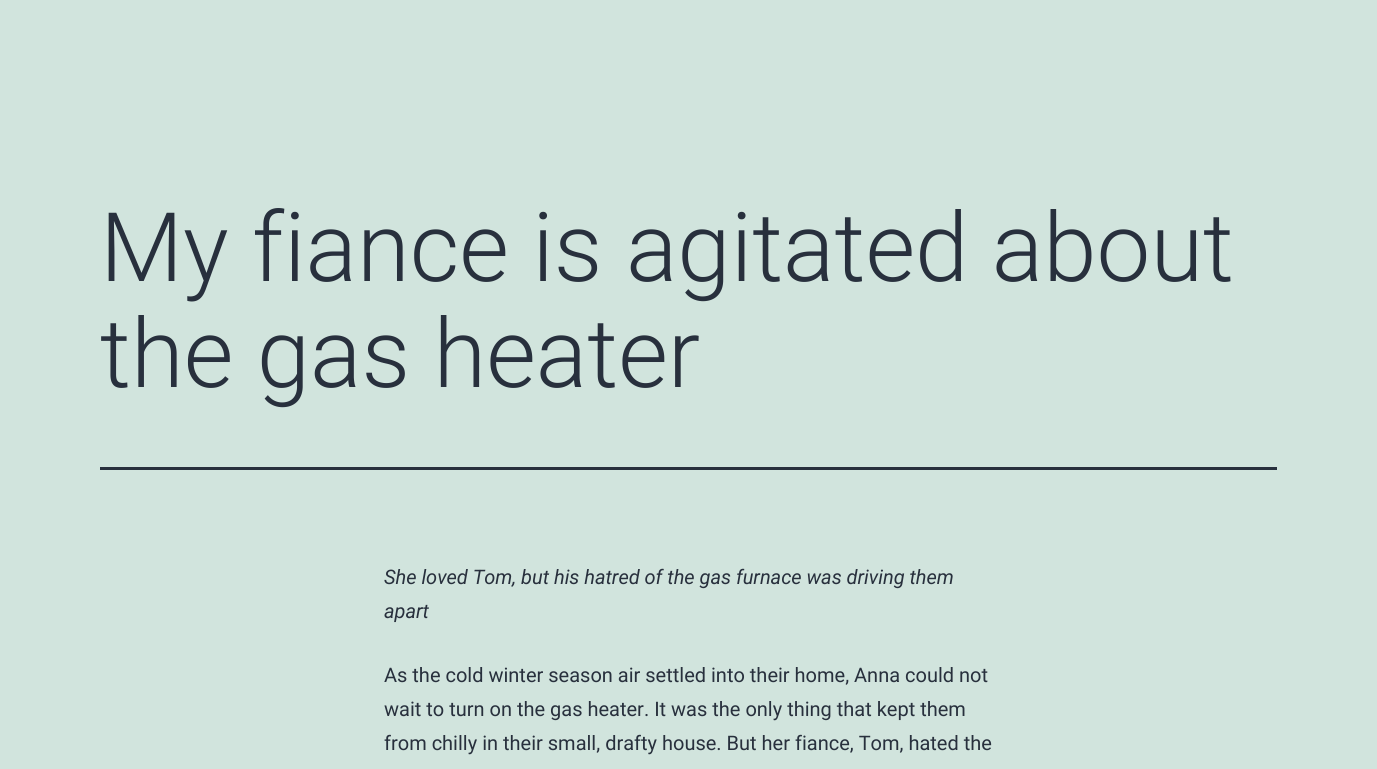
import math
import cairo



def draw(context):
    context.set_source_rgb(209 / 255, 228 / 255, 221 / 255)
    context.paint()
    context.set_source_rgb(40 / 255, 48 / 255, 61 / 255)
    context.rectangle(100, 467, 1177, 3)
    context.fill()
    context.select_font_face("Roboto Light")
    context.set_font_size(96)
    context.move_to(100, 281)
    context.show_text("My fiance is agitated about")
    context.move_to(100, 387)
    context.show_text("the gas heater")
    context.select_font_face("Roboto", cairo.FontSlant.ITALIC)
    context.set_font_size(20)
    context.move_to(384, 584)
    context.show_text("She loved Tom, but his hatred of the gas furnace was driving them")
    context.move_to(384, 618)
    context.show_text("apart")
    context.select_font_face("Roboto")
    context.move_to(384, 682)
    context.show_text("As the cold winter season air settled into their home, Anna could not")
    context.move_to(384, 716)
    context.show_text("wait to turn on the gas heater. It was the only thing that kept them")
    context.move_to(384, 750)
    context.show_text("from chilly in their small, drafty house. But her fiance, Tom, hated the")


surface = cairo.ImageSurface(cairo.Format.RGB24, 1377, 769)
context = cairo.Context(surface)
options = cairo.FontOptions()
options.set_hint_metrics(cairo.HintMetrics.OFF)
options.set_hint_style(cairo.HintStyle.NONE)
context.set_font_options(options)
context.set_miter_limit(4)
draw(context)
surface.write_to_png("out.png")
